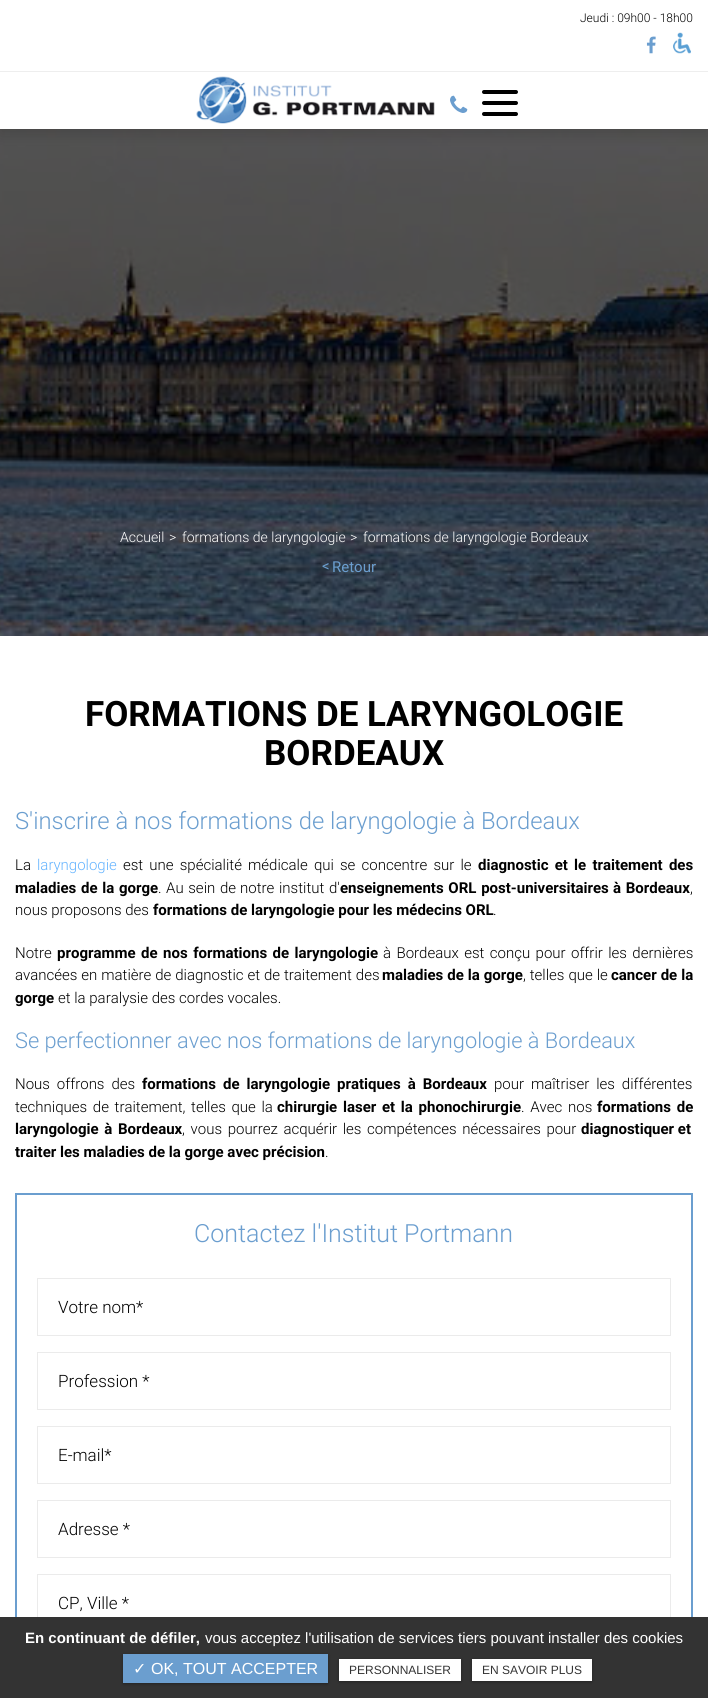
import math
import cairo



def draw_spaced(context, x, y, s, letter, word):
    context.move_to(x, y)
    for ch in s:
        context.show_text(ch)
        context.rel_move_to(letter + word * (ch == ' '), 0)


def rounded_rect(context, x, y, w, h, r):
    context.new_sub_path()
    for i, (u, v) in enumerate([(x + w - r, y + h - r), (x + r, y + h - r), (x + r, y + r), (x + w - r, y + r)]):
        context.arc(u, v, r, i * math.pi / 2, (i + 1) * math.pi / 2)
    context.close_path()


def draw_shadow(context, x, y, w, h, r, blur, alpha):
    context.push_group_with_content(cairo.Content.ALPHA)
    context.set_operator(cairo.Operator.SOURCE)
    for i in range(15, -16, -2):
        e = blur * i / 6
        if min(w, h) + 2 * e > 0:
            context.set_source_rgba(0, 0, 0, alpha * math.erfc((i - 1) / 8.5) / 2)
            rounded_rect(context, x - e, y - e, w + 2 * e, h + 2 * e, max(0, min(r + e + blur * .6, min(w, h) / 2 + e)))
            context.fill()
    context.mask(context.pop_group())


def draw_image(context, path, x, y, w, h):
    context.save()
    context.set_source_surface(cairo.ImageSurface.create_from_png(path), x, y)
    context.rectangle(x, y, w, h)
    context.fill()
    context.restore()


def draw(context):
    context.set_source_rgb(1, 1, 1)
    context.paint()
    draw_image(context, "images/5.png", 0, 129, 708, 507)
    context.set_source_rgb(0, 0, 0)
    draw_shadow(context, 0, 5, 708, 129, 0, 7.5, 0.15)
    context.set_source_rgb(1, 1, 1)
    context.rectangle(0, 0, 708, 71)
    context.fill()
    context.set_source_rgb(238 / 255, 238 / 255, 238 / 255)
    context.rectangle(0, 71, 708, 1)
    context.fill()
    draw_image(context, "images/1.png", 646, 36, 10, 18)
    draw_image(context, "images/2.png", 673, 32, 18, 22)
    context.set_source_rgb(1, 1, 1)
    context.rectangle(0, 72, 708, 57)
    context.fill()
    draw_image(context, "images/3.png", 196, 76, 239, 48)
    draw_image(context, "images/4.png", 450, 95, 18, 18)
    context.set_source_rgb(0, 0, 0)
    rounded_rect(context, 482, 90, 36, 4, 2)
    context.fill()
    rounded_rect(context, 482, 101, 36, 4, 2)
    context.fill()
    rounded_rect(context, 482, 112, 36, 4, 2)
    context.fill()
    context.rectangle(16, 1194, 676, 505)
    context.set_source_rgb(107 / 255, 158 / 255, 207 / 255)
    context.stroke()
    context.rectangle(37.5, 1278.5, 633, 57)
    context.set_source_rgb(235 / 255, 235 / 255, 235 / 255)
    context.set_line_width(1)
    context.stroke()
    context.rectangle(37.5, 1352.5, 633, 57)
    context.stroke()
    context.rectangle(37.5, 1426.5, 633, 57)
    context.stroke()
    context.rectangle(37.5, 1500.5, 633, 57)
    context.stroke()
    context.rectangle(37.5, 1574.5, 633, 57)
    context.stroke()
    context.set_source_rgb(51 / 255, 51 / 255, 51 / 255)
    context.rectangle(0, 1617, 708, 81)
    context.fill()
    context.set_source_rgb(0, 0, 0)
    draw_shadow(context, 123, 1655, 205, 29, 0, 1.5, 0.3)
    context.set_source_rgb(107 / 255, 158 / 255, 207 / 255)
    context.rectangle(123, 1654, 205, 29)
    context.fill()
    context.set_source_rgb(0, 0, 0)
    draw_shadow(context, 339, 1660, 122, 22, 0, 1.5, 0.3)
    context.set_source_rgb(1, 1, 1)
    context.rectangle(339, 1659, 122, 22)
    context.fill()
    context.set_source_rgb(0, 0, 0)
    draw_shadow(context, 472, 1660, 120, 22, 0, 1.5, 0.3)
    context.set_source_rgb(1, 1, 1)
    context.rectangle(472, 1659, 120, 22)
    context.fill()
    context.select_font_face("Roboto Light")
    context.set_font_size(12)
    context.set_source_rgb(0, 0, 0)
    context.move_to(580, 22)
    context.show_text("Jeudi : 09h00 - 18h00")
    context.set_font_size(14)
    context.set_source_rgb(1, 1, 1)
    context.move_to(120, 542)
    context.show_text("Accueil")
    context.move_to(169, 542)
    context.show_text(">")
    context.move_to(182, 542)
    context.show_text("formations de laryngologie")
    context.move_to(350, 542)
    context.show_text(">")
    context.move_to(363, 542)
    context.show_text("formations de laryngologie Bordeaux")
    context.select_font_face("Roboto")
    context.set_font_size(15)
    context.set_source_rgb(107 / 255, 158 / 255, 207 / 255)
    context.move_to(322, 571)
    context.show_text("<")
    context.move_to(332, 572)
    context.show_text("Retour")
    context.select_font_face("Roboto", cairo.FontSlant.NORMAL, cairo.FontWeight.BOLD)
    context.set_font_size(35)
    context.set_source_rgb(0, 0, 0)
    context.move_to(85, 726)
    context.show_text("FORMATIONS DE LARYNGOLOGIE")
    context.move_to(264, 765)
    context.show_text("BORDEAUX")
    context.select_font_face("Roboto Light")
    context.set_font_size(23.8)
    context.set_source_rgb(107 / 255, 158 / 255, 207 / 255)
    context.move_to(15, 829)
    context.show_text("S'inscrire à nos formations de laryngologie à Bordeaux")
    context.set_font_size(15)
    context.set_source_rgb(0, 0, 0)
    context.move_to(15, 870)
    context.show_text("La")
    context.set_source_rgb(101 / 255, 180 / 255, 1)
    context.move_to(37, 870)
    context.show_text("laryngologie")
    context.set_source_rgb(0, 0, 0)
    draw_spaced(context, 123, 870, "est une spécialité médicale qui se concentre sur le", 0, 2.5)
    context.select_font_face("Roboto", cairo.FontSlant.NORMAL, cairo.FontWeight.BOLD)
    draw_spaced(context, 478, 870, "diagnostic et le traitement des", 0, 2.5)
    draw_spaced(context, 15, 893, "maladies de la gorge", 0, 1)
    context.select_font_face("Roboto Light")
    context.move_to(158, 893)
    context.show_text(".")
    draw_spaced(context, 166, 893, "Au sein de", 0, 1)
    context.move_to(240, 893)
    context.show_text("notre")
    context.move_to(279, 893)
    context.show_text("institut")
    context.move_to(329, 893)
    context.show_text("d'")
    context.select_font_face("Roboto", cairo.FontSlant.NORMAL, cairo.FontWeight.BOLD)
    draw_spaced(context, 340, 893, "enseignements ORL post-universitaires", 0, 1)
    draw_spaced(context, 613, 893, "à Bordeaux", 0, 1)
    context.select_font_face("Roboto Light")
    context.move_to(690, 893)
    context.show_text(",")
    context.move_to(15, 915)
    context.show_text("nous proposons des")
    context.select_font_face("Roboto", cairo.FontSlant.NORMAL, cairo.FontWeight.BOLD)
    context.move_to(153, 915)
    context.show_text("formations de laryngologie pour les médecins ORL")
    context.select_font_face("Roboto Light")
    context.move_to(493, 915)
    context.show_text(".")
    context.move_to(15, 958)
    context.show_text("Notre")
    context.select_font_face("Roboto", cairo.FontSlant.NORMAL, cairo.FontWeight.BOLD)
    draw_spaced(context, 57, 958, "programme de nos formations de laryngologie", 0, 1.75)
    context.select_font_face("Roboto Light")
    draw_spaced(context, 383, 958, "à Bordeaux est conçu pour offrir les dernières", 0, 1.75)
    draw_spaced(context, 15, 980, "avancées en matière de diagnostic et de traitement des", 0, 0.25)
    context.select_font_face("Roboto", cairo.FontSlant.NORMAL, cairo.FontWeight.BOLD)
    draw_spaced(context, 382, 980, "maladies de la gorge", 0, 0.25)
    context.select_font_face("Roboto Light")
    draw_spaced(context, 523, 980, ", telles que le", 0, 0.25)
    context.select_font_face("Roboto", cairo.FontSlant.NORMAL, cairo.FontWeight.BOLD)
    draw_spaced(context, 611, 980, "cancer de la", 0, 0.25)
    context.move_to(15, 1003)
    context.show_text("gorge")
    context.select_font_face("Roboto Light")
    context.move_to(58, 1003)
    context.show_text("et la paralysie des cordes vocales.")
    context.set_font_size(21.8)
    context.set_source_rgb(107 / 255, 158 / 255, 207 / 255)
    context.move_to(15, 1048)
    context.show_text("Se perfectionner avec nos formations de laryngologie à Bordeaux")
    context.set_font_size(15)
    context.set_source_rgb(0, 0, 0)
    draw_spaced(context, 15, 1089, "Nous offrons des", 0, 3.25)
    context.select_font_face("Roboto", cairo.FontSlant.NORMAL, cairo.FontWeight.BOLD)
    draw_spaced(context, 142, 1089, "formations de laryngologie pratiques à Bordeaux", 0, 3.25)
    context.select_font_face("Roboto Light")
    draw_spaced(context, 494, 1089, "pour maîtriser les différentes", 0, 3.25)
    draw_spaced(context, 15, 1112, "techniques de traitement, telles que la", 0, 2)
    context.select_font_face("Roboto", cairo.FontSlant.NORMAL, cairo.FontWeight.BOLD)
    draw_spaced(context, 277, 1112, "chirurgie laser et la phonochirurgie", 0, 2)
    context.select_font_face("Roboto Light")
    draw_spaced(context, 521, 1112, ". Avec nos", 0, 2)
    context.select_font_face("Roboto", cairo.FontSlant.NORMAL, cairo.FontWeight.BOLD)
    draw_spaced(context, 597, 1112, "formations de", 0, 2)
    draw_spaced(context, 15, 1134, "laryngologie à Bordeaux", 0, 2)
    context.select_font_face("Roboto Light")
    draw_spaced(context, 182, 1134, ", vous pourrez acquérir les compétences nécessaires pour", 0, 2)
    context.select_font_face("Roboto", cairo.FontSlant.NORMAL, cairo.FontWeight.BOLD)
    context.move_to(581, 1134)
    context.show_text("diagnostiquer et")
    context.move_to(15, 1157)
    context.show_text("traiter les maladies de la gorge avec précision")
    context.select_font_face("Roboto Light")
    context.move_to(325, 1157)
    context.show_text(".")
    context.set_font_size(25)
    context.set_source_rgb(107 / 255, 158 / 255, 207 / 255)
    context.move_to(194, 1242)
    context.show_text("Contactez l'Institut Portmann")
    context.set_font_size(17)
    context.set_source_rgb(0, 0, 0)
    context.move_to(58, 1313)
    context.show_text("Votre nom*")
    context.move_to(58, 1387)
    context.show_text("Profession *")
    context.move_to(58, 1461)
    context.show_text("E-mail*")
    context.move_to(58, 1535)
    context.show_text("Adresse *")
    context.move_to(58, 1609)
    context.show_text("CP, Ville *")
    context.select_font_face("Liberation Sans", cairo.FontSlant.NORMAL, cairo.FontWeight.BOLD)
    context.set_font_size(15)
    context.set_source_rgb(1, 1, 1)
    context.move_to(25, 1643)
    context.show_text("En continuant de défiler,")
    context.select_font_face("Liberation Sans")
    context.move_to(205, 1643)
    context.show_text("vous acceptez l'utilisation de services tiers pouvant installer des cookies")
    context.select_font_face("DejaVu Sans")
    context.set_font_size(16)
    context.move_to(133, 1674)
    context.show_text("✓")
    context.select_font_face("Liberation Sans")
    context.move_to(151, 1674)
    context.show_text("OK, TOUT ACCEPTER")
    context.set_font_size(12)
    context.set_source_rgb(51 / 255, 51 / 255, 51 / 255)
    context.move_to(349, 1674)
    context.show_text("PERSONNALISER")
    context.move_to(482, 1674)
    context.show_text("EN SAVOIR PLUS")


surface = cairo.ImageSurface(cairo.Format.RGB24, 708, 1698)
context = cairo.Context(surface)
options = cairo.FontOptions()
options.set_hint_metrics(cairo.HintMetrics.OFF)
options.set_hint_style(cairo.HintStyle.NONE)
context.set_font_options(options)
context.set_miter_limit(4)
draw(context)
surface.write_to_png("out.png")
